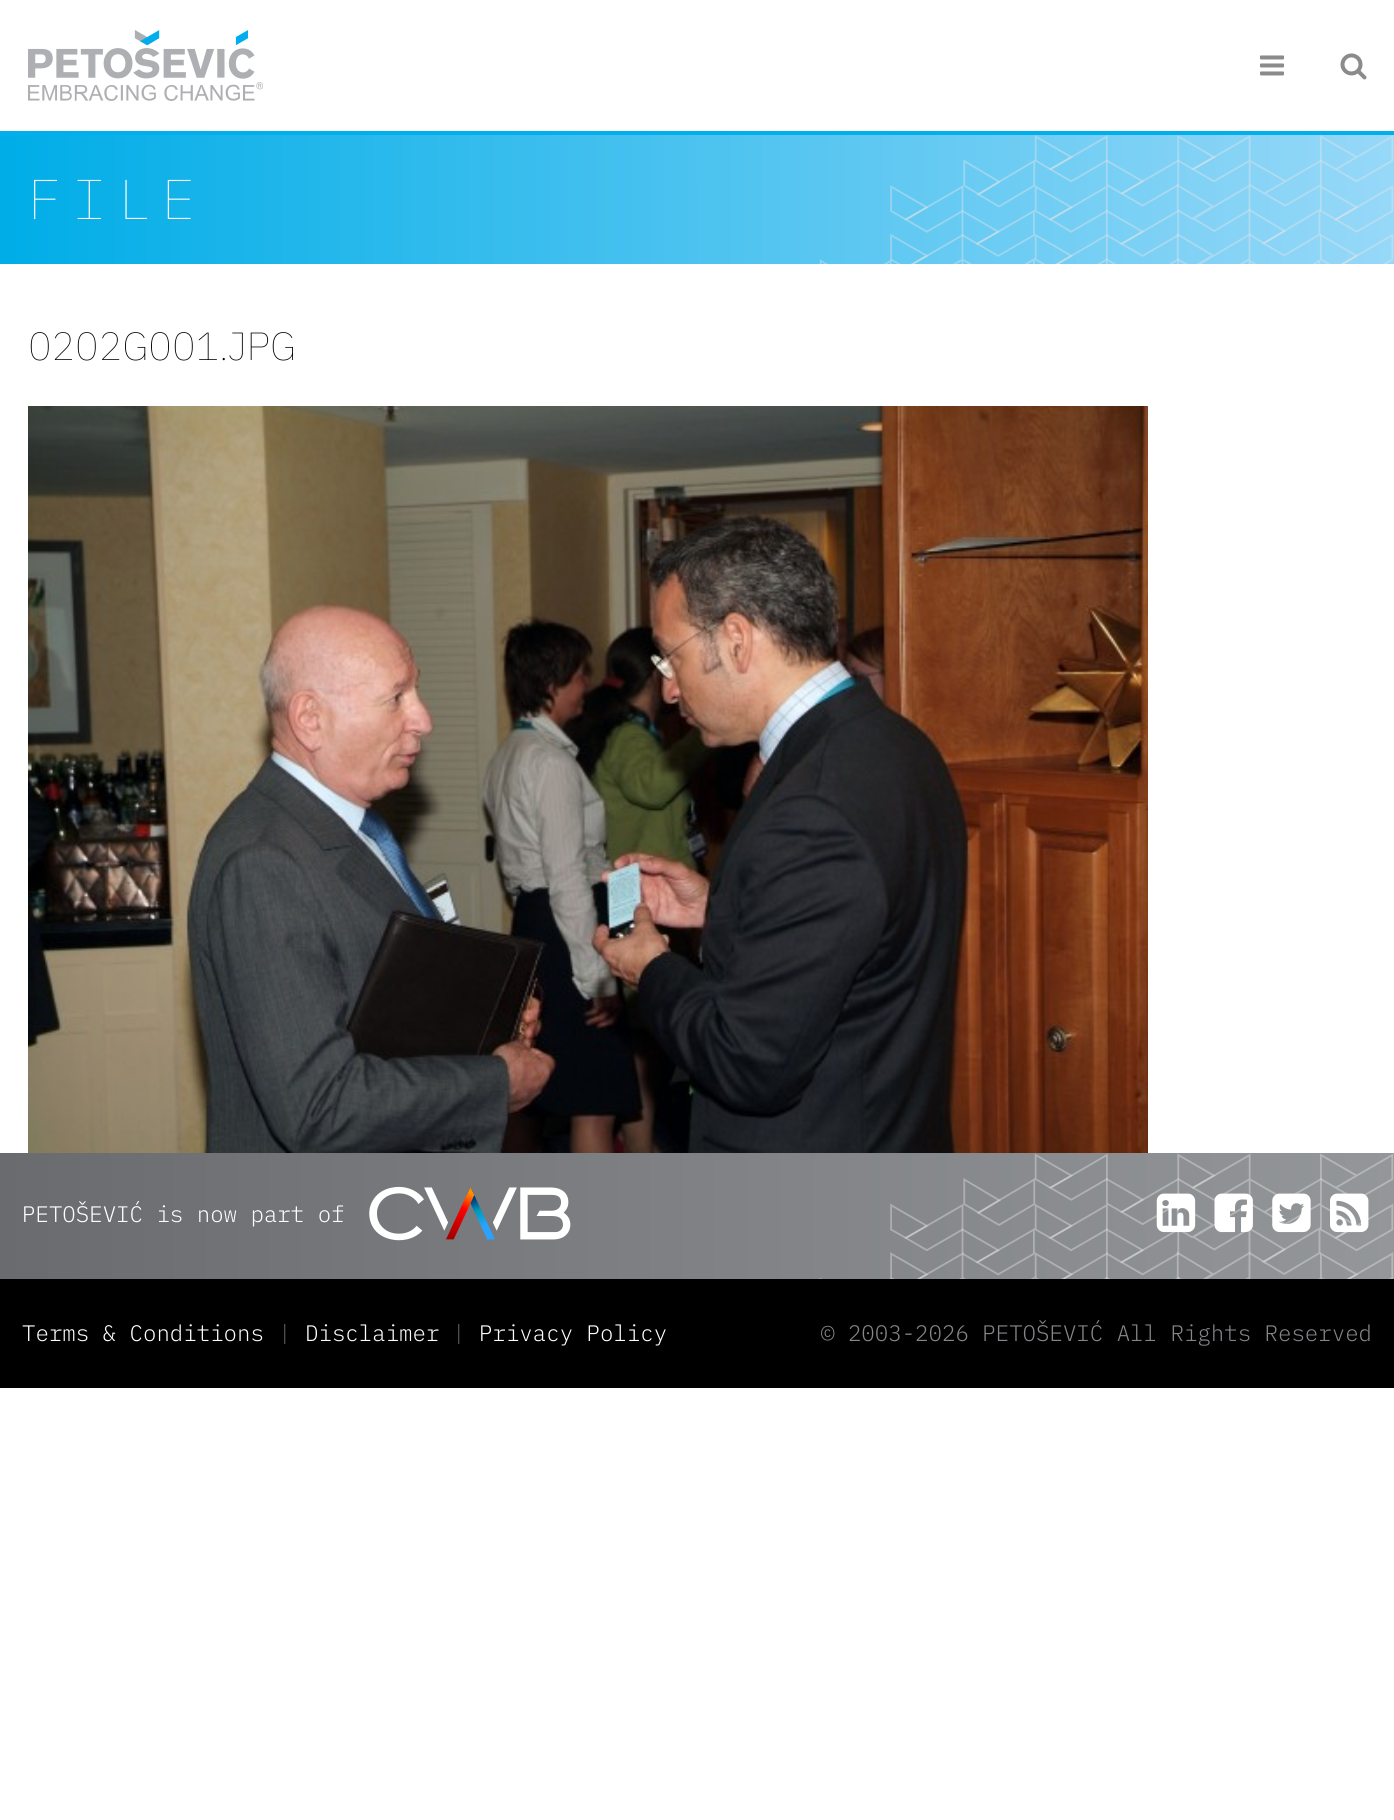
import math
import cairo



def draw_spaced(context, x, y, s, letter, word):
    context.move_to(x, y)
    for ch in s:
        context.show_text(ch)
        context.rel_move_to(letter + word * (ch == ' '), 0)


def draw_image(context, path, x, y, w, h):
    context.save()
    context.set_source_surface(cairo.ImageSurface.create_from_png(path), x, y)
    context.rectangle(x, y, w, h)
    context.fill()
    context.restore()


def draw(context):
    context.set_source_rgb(1, 1, 1)
    context.paint()
    draw_image(context, "images/1.png", 28, 30, 235, 71)
    draw_image(context, "images/2.png", 1260, 55, 24, 21)
    draw_image(context, "images/3.png", 1340, 53, 27, 27)
    gradient = cairo.LinearGradient(0, 200, 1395, 199)
    gradient.add_color_stop_rgba(0, 0, 173 / 255, 231 / 255, 1)
    gradient.add_color_stop_rgba(1, 151 / 255, 216 / 255, 248 / 255, 1)
    context.set_source(gradient)
    context.rectangle(0, 135, 1394, 129)
    context.fill()
    draw_image(context, "images/4.png", 819, 135, 575, 129)
    context.set_source_rgb(0, 175 / 255, 236 / 255)
    context.rectangle(0, 131, 1394, 4)
    context.fill()
    draw_image(context, "images/5.png", 28, 406, 1120, 747)
    gradient = cairo.LinearGradient(0, 1271, 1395, 1271)
    gradient.add_color_stop_rgba(0, 106 / 255, 107 / 255, 111 / 255, 1)
    gradient.add_color_stop_rgba(1, 148 / 255, 151 / 255, 153 / 255, 1)
    context.set_source(gradient)
    context.rectangle(0, 1153, 1394, 126)
    context.fill()
    draw_image(context, "images/6.png", 819, 1153, 575, 126)
    draw_image(context, "images/7.png", 369, 1186, 202, 55)
    draw_image(context, "images/8.png", 1156, 1193, 40, 40)
    draw_image(context, "images/9.png", 1214, 1193, 39, 40)
    draw_image(context, "images/10.png", 1272, 1193, 39, 40)
    draw_image(context, "images/11.png", 1330, 1193, 39, 40)
    context.set_source_rgb(0, 0, 0)
    context.rectangle(0, 1279, 1394, 109)
    context.fill()
    context.select_font_face("IBM Plex Mono Thin")
    context.set_font_size(56)
    context.set_source_rgb(1, 1, 1)
    draw_spaced(context, 28, 219, "FILE", 11, 0)
    context.select_font_face("IBM Plex Sans Thin")
    context.set_font_size(39.25)
    context.set_source_rgb(0, 0, 0)
    context.move_to(28, 360)
    context.show_text("0202G001.JPG")
    context.select_font_face("IBM Plex Mono Light")
    context.set_font_size(22.4)
    context.set_source_rgb(1, 1, 1)
    context.move_to(22, 1222)
    context.show_text("PETOŠEVIĆ is now part of")
    context.move_to(22, 1341)
    context.show_text("Terms & Conditions")
    context.set_source_rgb(91 / 255, 91 / 255, 91 / 255)
    context.move_to(278, 1341)
    context.show_text("|")
    context.set_source_rgb(1, 1, 1)
    context.move_to(305, 1341)
    context.show_text("Disclaimer")
    context.set_source_rgb(91 / 255, 91 / 255, 91 / 255)
    context.move_to(452, 1341)
    context.show_text("|")
    context.set_source_rgb(1, 1, 1)
    context.move_to(479, 1341)
    context.show_text("Privacy Policy")
    context.set_source_rgb(133 / 255, 134 / 255, 138 / 255)
    context.move_to(821, 1341)
    context.show_text("© 2003-2026 PETOŠEVIĆ All Rights Reserved")


surface = cairo.ImageSurface(cairo.Format.RGB24, 1394, 1820)
context = cairo.Context(surface)
options = cairo.FontOptions()
options.set_hint_metrics(cairo.HintMetrics.OFF)
options.set_hint_style(cairo.HintStyle.NONE)
context.set_font_options(options)
context.set_miter_limit(4)
draw(context)
surface.write_to_png("out.png")
